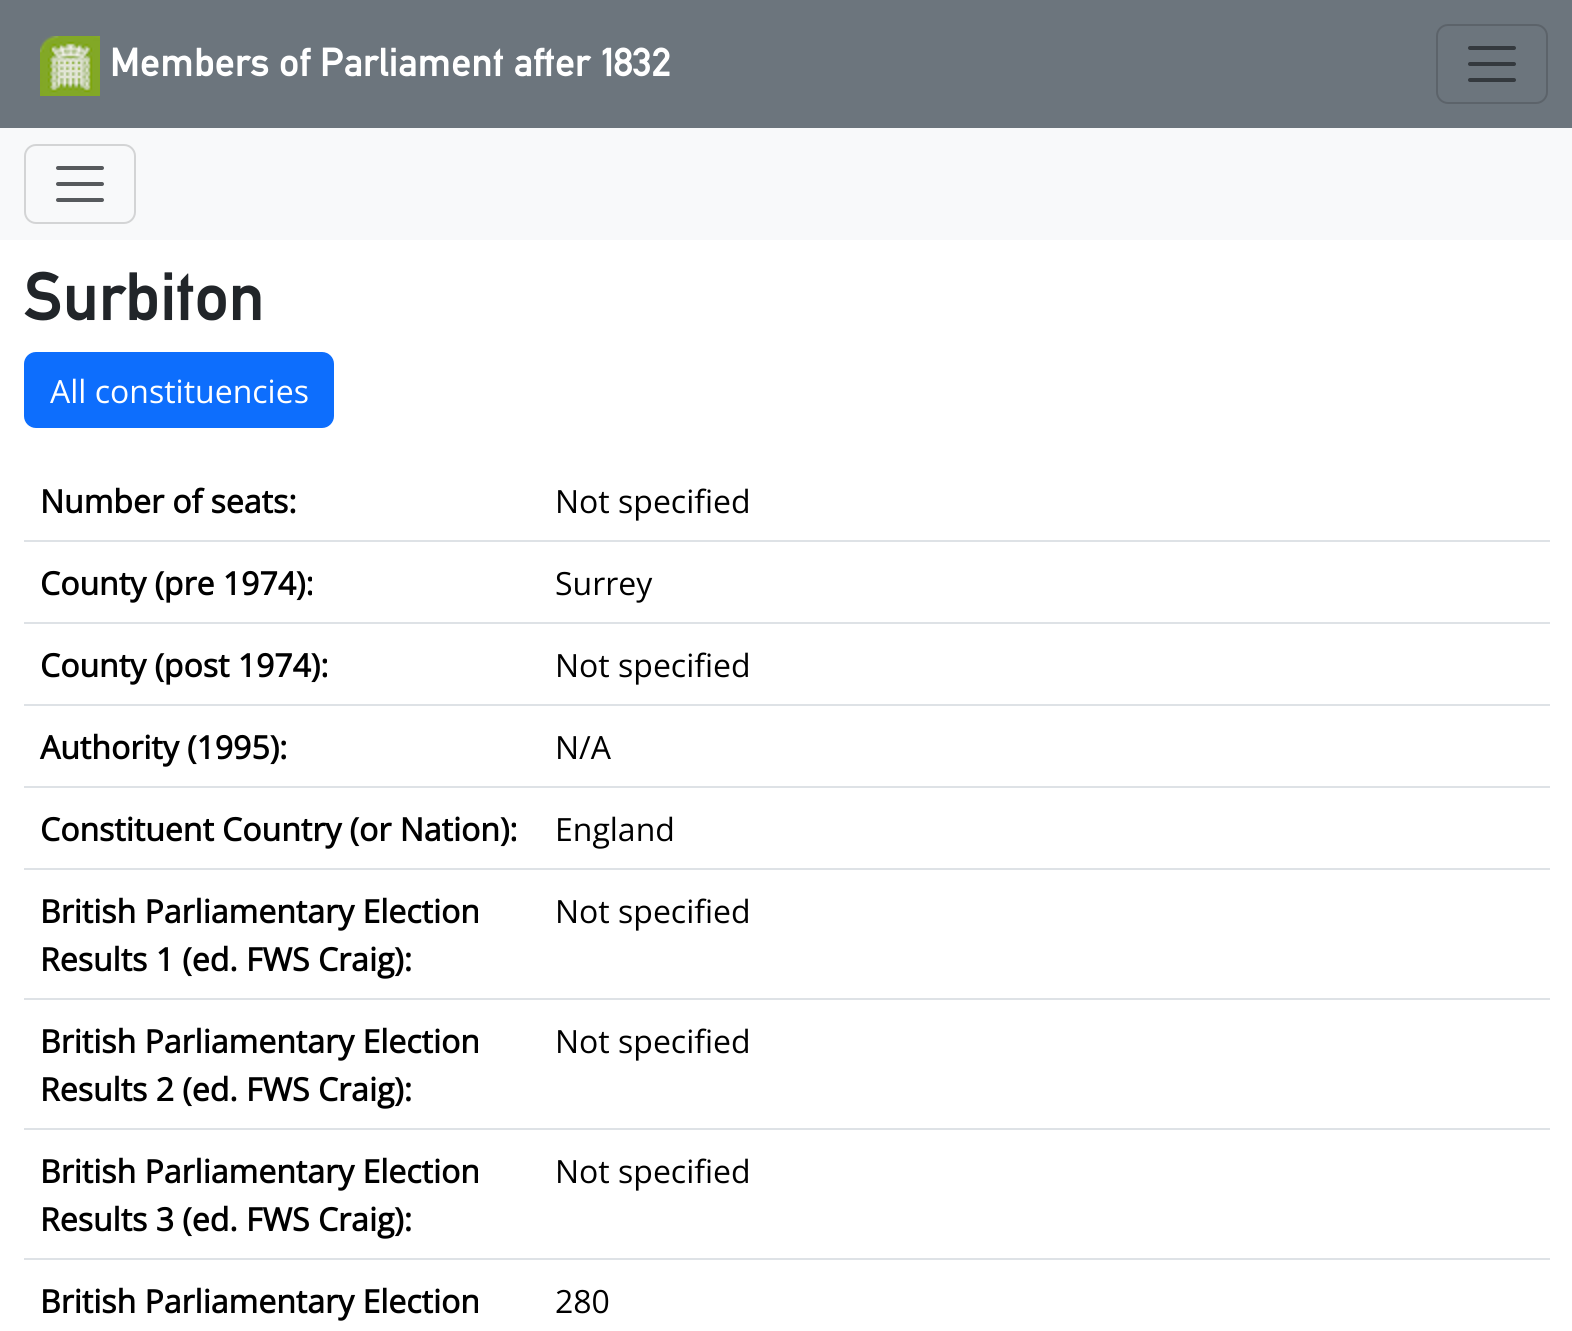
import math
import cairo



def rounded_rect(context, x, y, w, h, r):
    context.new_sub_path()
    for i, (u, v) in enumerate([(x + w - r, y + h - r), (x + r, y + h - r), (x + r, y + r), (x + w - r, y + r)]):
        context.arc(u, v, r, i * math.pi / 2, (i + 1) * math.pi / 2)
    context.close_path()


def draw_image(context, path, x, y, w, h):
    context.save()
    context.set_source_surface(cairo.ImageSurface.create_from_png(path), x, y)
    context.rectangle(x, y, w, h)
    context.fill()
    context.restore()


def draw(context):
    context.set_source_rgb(1, 1, 1)
    context.paint()
    context.set_source_rgb(108 / 255, 117 / 255, 125 / 255)
    context.rectangle(0, 0, 1572, 128)
    context.fill()
    draw_image(context, "images/1.png", 40, 36, 60, 60)
    rounded_rect(context, 1437, 25, 110, 78, 11)
    context.set_source_rgb(92 / 255, 99 / 255, 106 / 255)
    context.stroke()
    context.new_path()
    context.move_to(1470, 48)
    context.line_to(1514, 48)
    context.move_to(1470, 64)
    context.line_to(1514, 64)
    context.move_to(1470, 80)
    context.line_to(1514, 80)
    context.set_source_rgb(52 / 255, 57 / 255, 62 / 255)
    context.set_line_width(4)
    context.set_line_cap(cairo.LineCap.ROUND)
    context.stroke()
    context.set_source_rgb(248 / 255, 249 / 255, 250 / 255)
    context.rectangle(0, 128, 1572, 112)
    context.fill()
    rounded_rect(context, 25, 145, 110, 78, 11)
    context.set_source_rgb(211 / 255, 212 / 255, 213 / 255)
    context.set_line_width(2)
    context.set_line_cap(cairo.LineCap.BUTT)
    context.stroke()
    context.new_path()
    context.move_to(58, 168)
    context.line_to(102, 168)
    context.move_to(58, 184)
    context.line_to(102, 184)
    context.move_to(58, 200)
    context.line_to(102, 200)
    context.set_source_rgb(87 / 255, 90 / 255, 93 / 255)
    context.set_line_width(4)
    context.set_line_cap(cairo.LineCap.ROUND)
    context.stroke()
    context.set_source_rgb(13 / 255, 110 / 255, 253 / 255)
    rounded_rect(context, 25, 353, 308, 74, 11)
    context.fill_preserve()
    context.set_line_width(2)
    context.set_line_cap(cairo.LineCap.BUTT)
    context.stroke()
    context.set_source_rgb(222 / 255, 226 / 255, 230 / 255)
    context.rectangle(24, 540, 1526, 2)
    context.fill()
    context.rectangle(24, 622, 1526, 2)
    context.fill()
    context.rectangle(24, 704, 1526, 2)
    context.fill()
    context.rectangle(24, 786, 1526, 2)
    context.fill()
    context.rectangle(24, 868, 1526, 2)
    context.fill()
    context.rectangle(24, 998, 1526, 2)
    context.fill()
    context.rectangle(24, 1128, 1526, 2)
    context.fill()
    context.rectangle(24, 1258, 1526, 2)
    context.fill()
    context.select_font_face("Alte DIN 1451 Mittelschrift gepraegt")
    context.set_font_size(40)
    context.set_source_rgb(1, 1, 1)
    context.move_to(110, 76)
    context.show_text("Members of Parliament after 1832")
    context.set_font_size(67.5)
    context.set_source_rgb(33 / 255, 37 / 255, 41 / 255)
    context.move_to(24, 320)
    context.show_text("Surbiton")
    context.select_font_face("Open Sans")
    context.set_font_size(32)
    context.set_source_rgb(1, 1, 1)
    context.move_to(50, 403)
    context.show_text("All constituencies")
    context.select_font_face("Open Sans", cairo.FontSlant.NORMAL, cairo.FontWeight.BOLD)
    context.set_source_rgb(0, 0, 0)
    context.move_to(40, 513)
    context.show_text("Number of seats:")
    context.select_font_face("Open Sans")
    context.move_to(555, 513)
    context.show_text("Not specified")
    context.select_font_face("Open Sans", cairo.FontSlant.NORMAL, cairo.FontWeight.BOLD)
    context.move_to(40, 595)
    context.show_text("County (pre 1974):")
    context.select_font_face("Open Sans")
    context.move_to(555, 595)
    context.show_text("Surrey")
    context.select_font_face("Open Sans", cairo.FontSlant.NORMAL, cairo.FontWeight.BOLD)
    context.move_to(40, 677)
    context.show_text("County (post 1974):")
    context.select_font_face("Open Sans")
    context.move_to(555, 677)
    context.show_text("Not specified")
    context.select_font_face("Open Sans", cairo.FontSlant.NORMAL, cairo.FontWeight.BOLD)
    context.move_to(40, 759)
    context.show_text("Authority (1995):")
    context.select_font_face("Open Sans")
    context.move_to(555, 759)
    context.show_text("N/A")
    context.select_font_face("Open Sans", cairo.FontSlant.NORMAL, cairo.FontWeight.BOLD)
    context.move_to(40, 841)
    context.show_text("Constituent Country (or Nation):")
    context.select_font_face("Open Sans")
    context.move_to(555, 841)
    context.show_text("England")
    context.select_font_face("Open Sans", cairo.FontSlant.NORMAL, cairo.FontWeight.BOLD)
    context.move_to(40, 923)
    context.show_text("British Parliamentary Election")
    context.move_to(40, 971)
    context.show_text("Results 1 (ed. FWS Craig):")
    context.select_font_face("Open Sans")
    context.move_to(555, 923)
    context.show_text("Not specified")
    context.select_font_face("Open Sans", cairo.FontSlant.NORMAL, cairo.FontWeight.BOLD)
    context.move_to(40, 1053)
    context.show_text("British Parliamentary Election")
    context.move_to(40, 1101)
    context.show_text("Results 2 (ed. FWS Craig):")
    context.select_font_face("Open Sans")
    context.move_to(555, 1053)
    context.show_text("Not specified")
    context.select_font_face("Open Sans", cairo.FontSlant.NORMAL, cairo.FontWeight.BOLD)
    context.move_to(40, 1183)
    context.show_text("British Parliamentary Election")
    context.move_to(40, 1231)
    context.show_text("Results 3 (ed. FWS Craig):")
    context.select_font_face("Open Sans")
    context.move_to(555, 1183)
    context.show_text("Not specified")
    context.select_font_face("Open Sans", cairo.FontSlant.NORMAL, cairo.FontWeight.BOLD)
    context.move_to(40, 1313)
    context.show_text("British Parliamentary Election")
    context.select_font_face("Open Sans")
    context.move_to(555, 1313)
    context.show_text("280")


surface = cairo.ImageSurface(cairo.Format.RGB24, 1572, 1331)
context = cairo.Context(surface)
options = cairo.FontOptions()
options.set_hint_metrics(cairo.HintMetrics.OFF)
options.set_hint_style(cairo.HintStyle.NONE)
context.set_font_options(options)
context.set_miter_limit(4)
draw(context)
surface.write_to_png("out.png")
